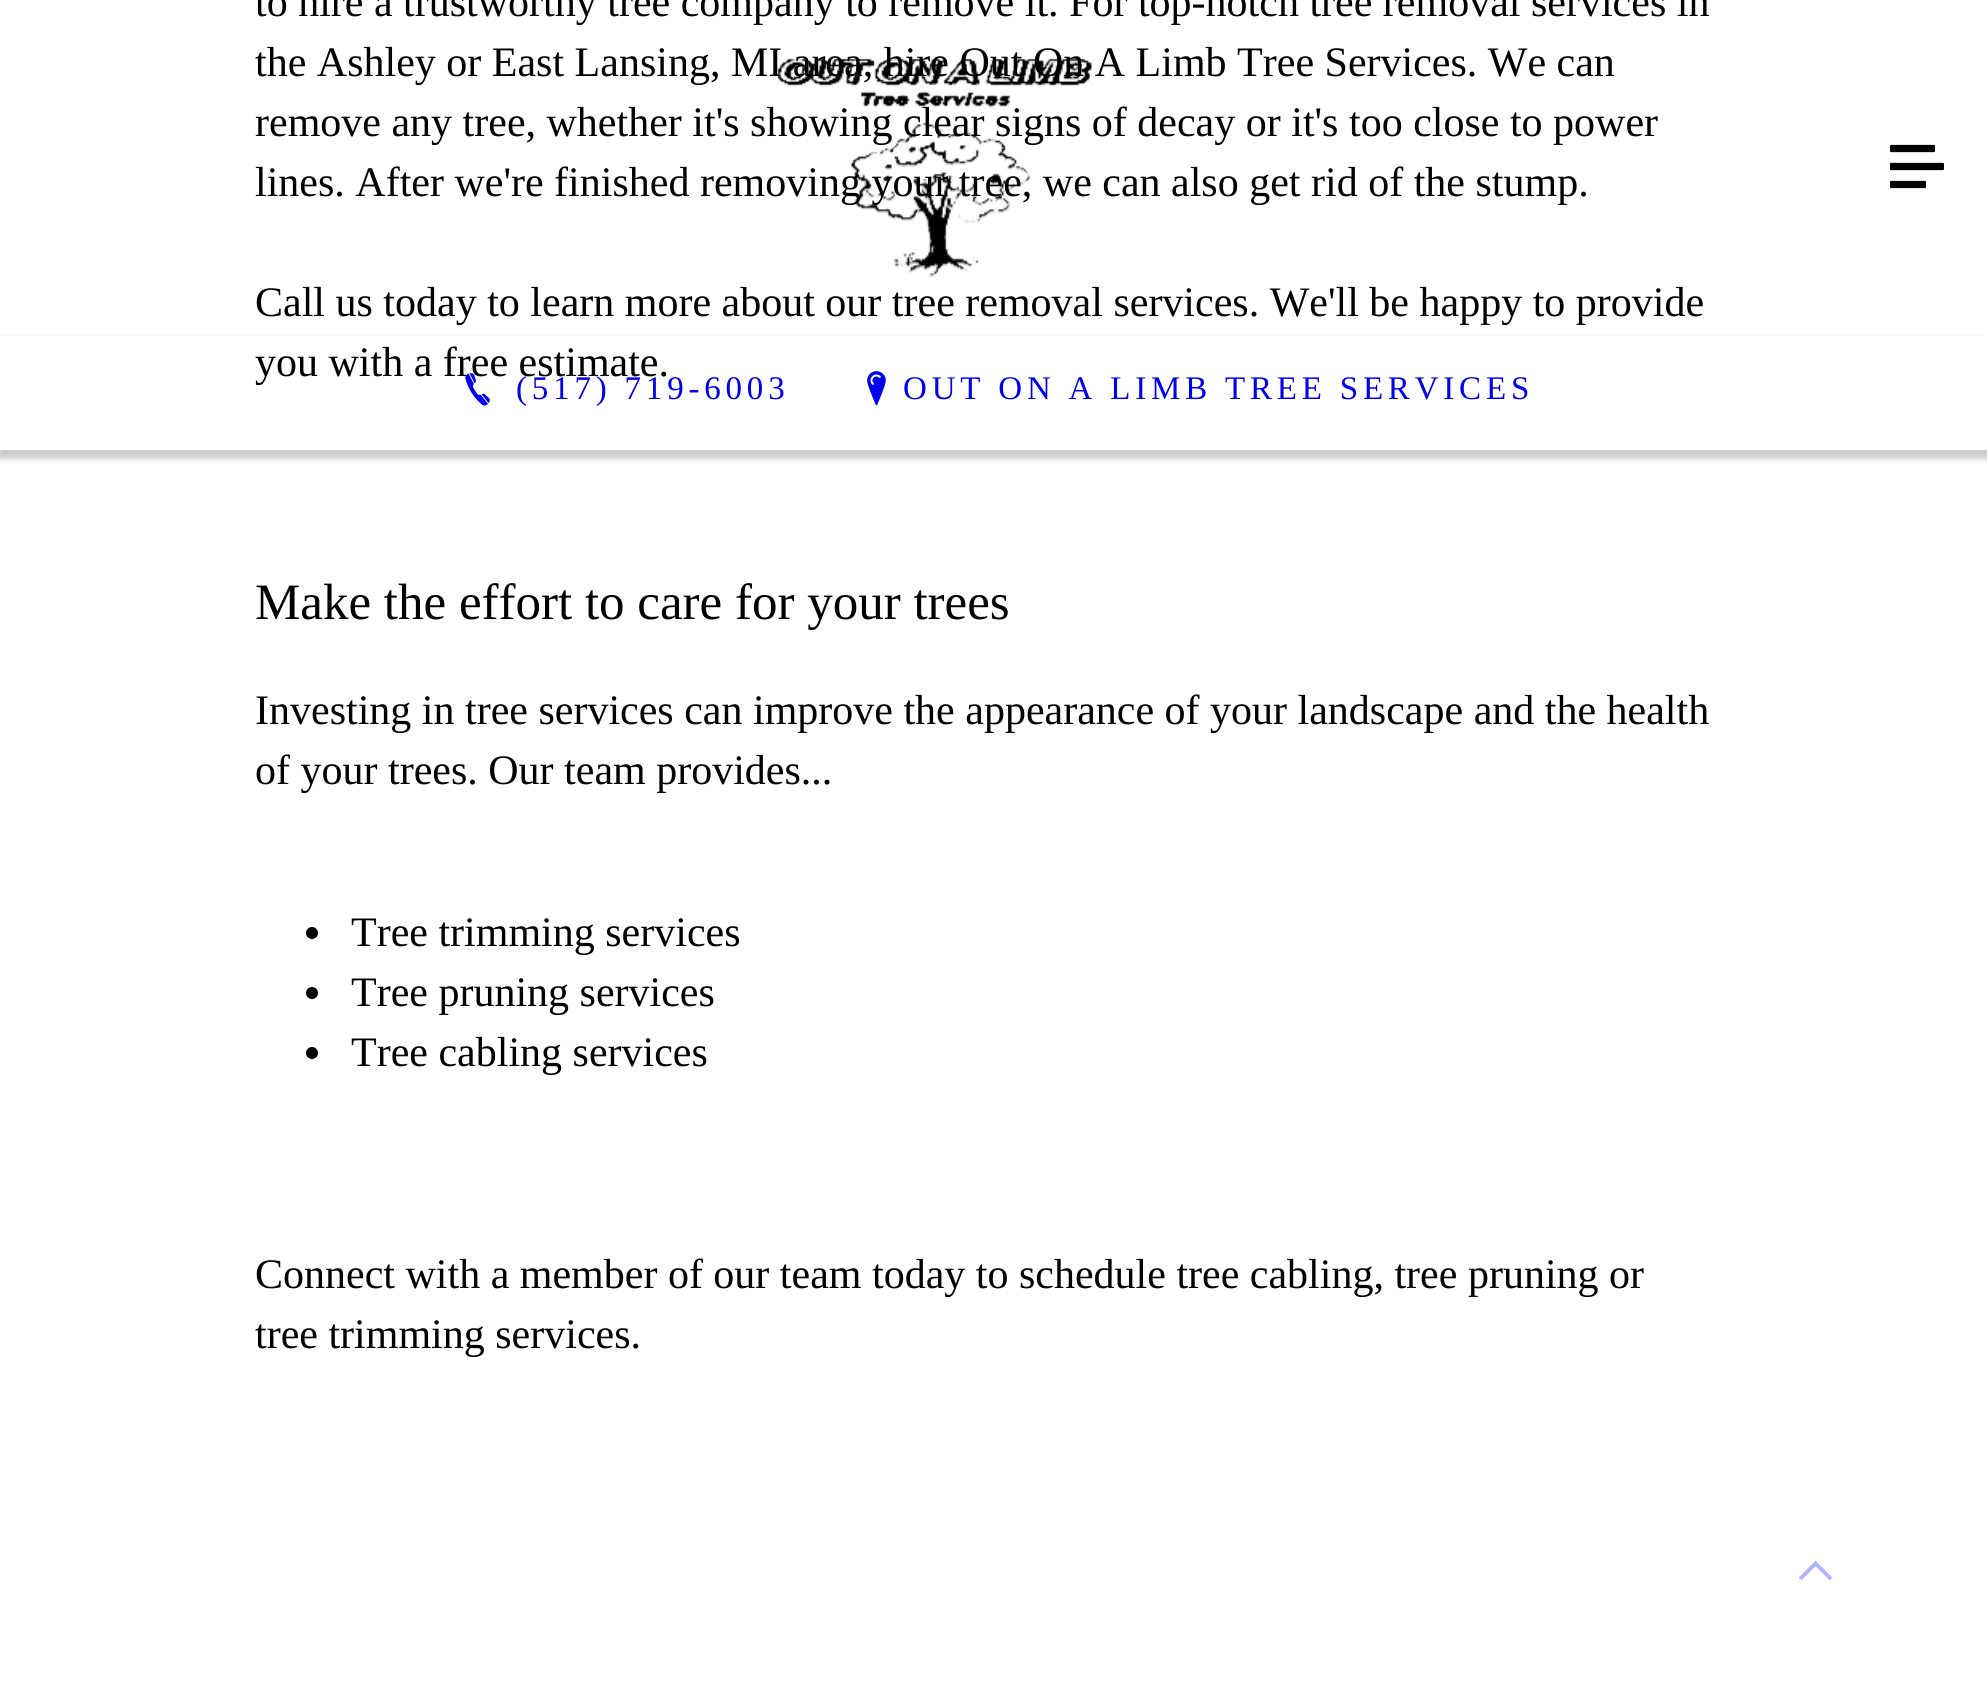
import math
import cairo



def draw_spaced(context, x, y, s, letter, word):
    context.move_to(x, y)
    for ch in s:
        context.show_text(ch)
        context.rel_move_to(letter + word * (ch == ' '), 0)


def rounded_rect(context, x, y, w, h, r):
    context.new_sub_path()
    for i, (u, v) in enumerate([(x + w - r, y + h - r), (x + r, y + h - r), (x + r, y + r), (x + w - r, y + r)]):
        context.arc(u, v, r, i * math.pi / 2, (i + 1) * math.pi / 2)
    context.close_path()


def draw_shadow(context, x, y, w, h, r, blur, alpha):
    context.push_group_with_content(cairo.Content.ALPHA)
    context.set_operator(cairo.Operator.SOURCE)
    for i in range(15, -16, -2):
        e = blur * i / 6
        if min(w, h) + 2 * e > 0:
            context.set_source_rgba(0, 0, 0, alpha * math.erfc((i - 1) / 8.5) / 2)
            rounded_rect(context, x - e, y - e, w + 2 * e, h + 2 * e, max(0, min(r + e + blur * .6, min(w, h) / 2 + e)))
            context.fill()
    context.mask(context.pop_group())


def draw_image(context, path, x, y, w, h):
    context.save()
    context.set_source_surface(cairo.ImageSurface.create_from_png(path), x, y)
    context.rectangle(x, y, w, h)
    context.fill()
    context.restore()


def draw(context):
    context.set_source_rgb(1, 1, 1)
    context.paint()
    context.set_source_rgb(0, 0, 0)
    context.arc(312, 933, 6, 0, 2 * math.pi)
    context.fill()
    context.arc(312, 993, 6, 0, 2 * math.pi)
    context.fill()
    context.arc(312, 1053, 6, 0, 2 * math.pi)
    context.fill()
    draw_image(context, "images/2.png", 1890, 144, 54, 45)
    context.save()
    context.set_fill_rule(cairo.FillRule.EVEN_ODD)
    context.new_path()
    context.move_to(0, 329)
    context.line_to(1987, 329)
    context.line_to(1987, 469)
    context.line_to(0, 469)
    context.close_path()
    context.move_to(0, 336)
    context.line_to(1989, 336)
    context.line_to(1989, 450)
    context.line_to(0, 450)
    context.close_path()
    context.clip()
    context.set_source_rgb(0, 0, 0)
    draw_shadow(context, -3, 339, 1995, 120, 0, 3, 0.2)
    context.restore()
    draw_image(context, "images/4.png", 867, 371, 19, 35)
    context.select_font_face("Liberation Serif")
    context.set_font_size(42)
    context.move_to(255, 16)
    context.show_text("to hire a trustworthy tree company to remove it. For top-notch tree removal services in")
    context.move_to(255, 76)
    context.show_text("the Ashley or East Lansing, MI area, hire Out On A Limb Tree Services. We can")
    context.move_to(255, 136)
    context.show_text("remove any tree, whether it's showing clear signs of decay or it's too close to power")
    context.move_to(255, 196)
    context.show_text("lines. After we're finished removing your tree, we can also get rid of the stump.")
    context.move_to(255, 316)
    context.show_text("Call us today to learn more about our tree removal services. We'll be happy to provide")
    context.move_to(255, 376)
    context.show_text("you with a free estimate.")
    context.set_font_size(51)
    context.move_to(255, 619)
    context.show_text("Make the effort to care for your trees")
    context.set_font_size(42)
    context.move_to(255, 724)
    context.show_text("Investing in tree services can improve the appearance of your landscape and the health")
    context.move_to(255, 784)
    context.show_text("of your trees. Our team provides...")
    context.move_to(351, 946)
    context.show_text("Tree trimming services")
    context.move_to(351, 1006)
    context.show_text("Tree pruning services")
    context.move_to(351, 1066)
    context.show_text("Tree cabling services")
    context.move_to(255, 1288)
    context.show_text("Connect with a member of our team today to schedule tree cabling, tree pruning or")
    context.move_to(255, 1348)
    context.show_text("tree trimming services.")
    draw_image(context, "images/1.png", 776, 57, 317, 221)
    draw_image(context, "images/3.png", 465, 373, 25, 33)
    context.set_font_size(33)
    context.set_source_rgb(0, 0, 238 / 255)
    draw_spaced(context, 516, 399, "(517) 719-6003", 4.8, 0)
    draw_spaced(context, 903, 399, "OUT ON A LIMB TREE SERVICES", 4.8, 0)
    context.select_font_face("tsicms")
    context.set_font_size(43)
    context.set_source_rgb(179 / 255, 179 / 255, 250 / 255)
    context.move_to(1799, 1588)
    context.show_text("+")


surface = cairo.ImageSurface(cairo.Format.RGB24, 1987, 1681)
context = cairo.Context(surface)
options = cairo.FontOptions()
options.set_hint_metrics(cairo.HintMetrics.OFF)
options.set_hint_style(cairo.HintStyle.NONE)
context.set_font_options(options)
context.set_miter_limit(4)
draw(context)
surface.write_to_png("out.png")
